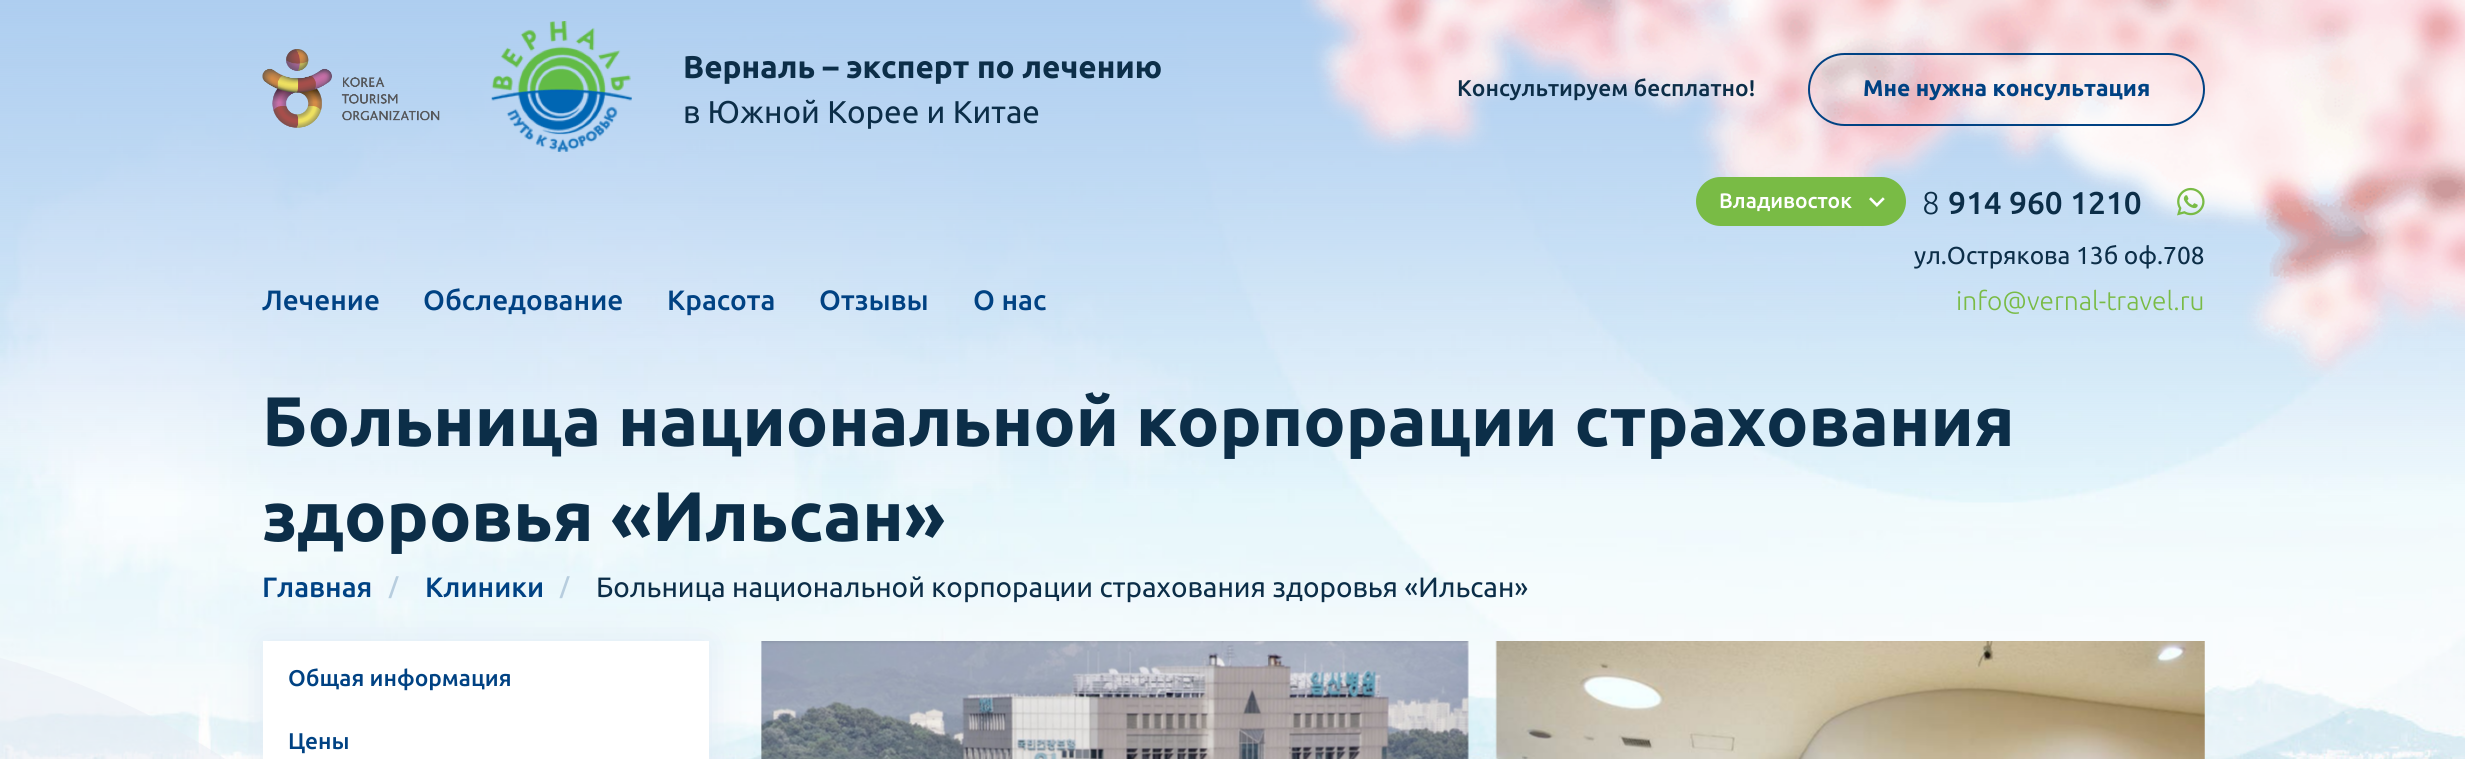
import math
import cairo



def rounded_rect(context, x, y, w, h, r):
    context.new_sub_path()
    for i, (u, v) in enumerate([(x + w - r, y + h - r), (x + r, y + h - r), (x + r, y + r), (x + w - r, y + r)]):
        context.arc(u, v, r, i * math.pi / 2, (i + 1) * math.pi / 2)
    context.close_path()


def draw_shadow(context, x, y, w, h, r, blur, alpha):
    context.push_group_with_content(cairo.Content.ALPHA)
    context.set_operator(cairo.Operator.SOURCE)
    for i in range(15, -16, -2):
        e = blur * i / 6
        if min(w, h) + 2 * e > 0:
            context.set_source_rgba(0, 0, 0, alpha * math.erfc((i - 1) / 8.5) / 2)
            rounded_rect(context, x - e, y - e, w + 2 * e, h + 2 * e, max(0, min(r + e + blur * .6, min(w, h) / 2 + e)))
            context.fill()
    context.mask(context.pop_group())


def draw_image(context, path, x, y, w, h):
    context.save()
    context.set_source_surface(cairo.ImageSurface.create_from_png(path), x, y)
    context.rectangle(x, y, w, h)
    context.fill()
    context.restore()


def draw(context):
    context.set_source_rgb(1, 1, 1)
    context.paint()
    draw_image(context, "images/1.png", 0, 0, 2465, 759)
    context.set_source_rgba(232 / 255, 237 / 255, 245 / 255, 0.5)
    context.set_fill_rule(cairo.FillRule.EVEN_ODD)
    context.new_path()
    context.move_to(-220, 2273)
    context.curve_to(234, 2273, 602, 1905, 602, 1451)
    context.curve_to(602, 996, 234, 628, -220, 628)
    context.curve_to(-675, 628, -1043, 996, -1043, 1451)
    context.curve_to(-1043, 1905, -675, 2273, -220, 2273)
    context.close_path()
    context.move_to(-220, 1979)
    context.curve_to(71, 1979, 308, 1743, 308, 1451)
    context.curve_to(308, 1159, 71, 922, -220, 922)
    context.curve_to(-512, 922, -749, 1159, -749, 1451)
    context.curve_to(-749, 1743, -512, 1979, -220, 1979)
    context.close_path()
    context.fill()
    draw_image(context, "images/2.png", 1300, 0, 1165, 377)
    draw_image(context, "images/3.png", 262, 49, 178, 79)
    draw_image(context, "images/4.png", 491, 21, 141, 131)
    rounded_rect(context, 1809, 54, 395, 71, 35.5)
    context.set_source_rgb(0, 66 / 255, 131 / 255)
    context.stroke()
    context.set_source_rgb(121 / 255, 187 / 255, 69 / 255)
    rounded_rect(context, 1696, 177, 210, 49, 24.5)
    context.fill()
    draw_image(context, "images/5.png", 1869, 197, 16, 10)
    draw_image(context, "images/6.png", 2177, 187, 28, 29)
    context.set_source_rgb(223 / 255, 233 / 255, 244 / 255)
    draw_shadow(context, 263, 642, 446, 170, 0, 17.5, 1)
    context.set_source_rgb(1, 1, 1)
    context.rectangle(263, 641, 446, 118)
    context.fill()
    draw_image(context, "images/7.png", 761, 641, 708, 118)
    draw_image(context, "images/8.png", 1495, 641, 710, 118)
    context.select_font_face("Ubuntu", cairo.FontSlant.NORMAL, cairo.FontWeight.BOLD)
    context.set_font_size(31.5)
    context.set_source_rgb(12 / 255, 46 / 255, 72 / 255)
    context.move_to(683, 78)
    context.show_text("Верналь – эксперт по лечению")
    context.select_font_face("Ubuntu")
    context.move_to(683, 123)
    context.show_text("в Южной Корее и Китае")
    context.select_font_face("Ubuntu Medium")
    context.set_font_size(22.75)
    context.move_to(1457, 96)
    context.show_text("Консультируем бесплатно!")
    context.select_font_face("Ubuntu", cairo.FontSlant.NORMAL, cairo.FontWeight.BOLD)
    context.set_source_rgb(0, 66 / 255, 131 / 255)
    context.move_to(1863, 96)
    context.show_text("Мне нужна консультация")
    context.select_font_face("Ubuntu Medium")
    context.set_font_size(28)
    context.move_to(262, 310)
    context.show_text("Лечение")
    context.move_to(423, 310)
    context.show_text("Обследование")
    context.move_to(667, 310)
    context.show_text("Красота")
    context.move_to(819, 310)
    context.show_text("Отзывы")
    context.move_to(973, 310)
    context.show_text("О нас")
    context.set_font_size(21)
    context.set_source_rgb(1, 1, 1)
    context.move_to(1719, 208)
    context.show_text("Владивосток")
    context.select_font_face("Ubuntu Light")
    context.set_font_size(31.5)
    context.set_source_rgb(12 / 255, 46 / 255, 72 / 255)
    context.move_to(1922, 214)
    context.show_text("8")
    context.select_font_face("Ubuntu Medium")
    context.move_to(1948, 214)
    context.show_text("914 960 1210")
    context.select_font_face("Ubuntu")
    context.set_font_size(24.5)
    context.move_to(1914, 264)
    context.show_text("ул.Острякова 13б оф.708")
    context.select_font_face("Ubuntu Light")
    context.set_font_size(26.25)
    context.set_source_rgb(121 / 255, 187 / 255, 69 / 255)
    context.move_to(1956, 310)
    context.show_text("info@vernal-travel.ru")
    context.select_font_face("Ubuntu", cairo.FontSlant.NORMAL, cairo.FontWeight.BOLD)
    context.set_font_size(70)
    context.set_source_rgb(12 / 255, 46 / 255, 72 / 255)
    context.move_to(262, 446)
    context.show_text("Больница национальной корпорации страхования")
    context.move_to(262, 541)
    context.show_text("здоровья «Ильсан»")
    context.select_font_face("Ubuntu Medium")
    context.set_font_size(28)
    context.set_source_rgb(0, 66 / 255, 131 / 255)
    context.move_to(262, 597)
    context.show_text("Главная")
    context.set_font_size(22.75)
    context.set_source_rgb(183 / 255, 205 / 255, 222 / 255)
    context.move_to(389, 594)
    context.show_text("/")
    context.set_font_size(28)
    context.set_source_rgb(0, 66 / 255, 131 / 255)
    context.move_to(425, 597)
    context.show_text("Клиники")
    context.set_font_size(22.75)
    context.set_source_rgb(183 / 255, 205 / 255, 222 / 255)
    context.move_to(560, 594)
    context.show_text("/")
    context.select_font_face("Ubuntu")
    context.set_font_size(28)
    context.set_source_rgb(12 / 255, 46 / 255, 72 / 255)
    context.move_to(596, 597)
    context.show_text("Больница национальной корпорации страхования здоровья «Ильсан»")
    context.select_font_face("Ubuntu Medium")
    context.set_font_size(22.75)
    context.set_source_rgb(0, 66 / 255, 131 / 255)
    context.move_to(288, 686)
    context.show_text("Общая информация")
    context.move_to(288, 749)
    context.show_text("Цены")


surface = cairo.ImageSurface(cairo.Format.RGB24, 2465, 759)
context = cairo.Context(surface)
options = cairo.FontOptions()
options.set_hint_metrics(cairo.HintMetrics.OFF)
options.set_hint_style(cairo.HintStyle.NONE)
context.set_font_options(options)
context.set_miter_limit(4)
draw(context)
surface.write_to_png("out.png")
